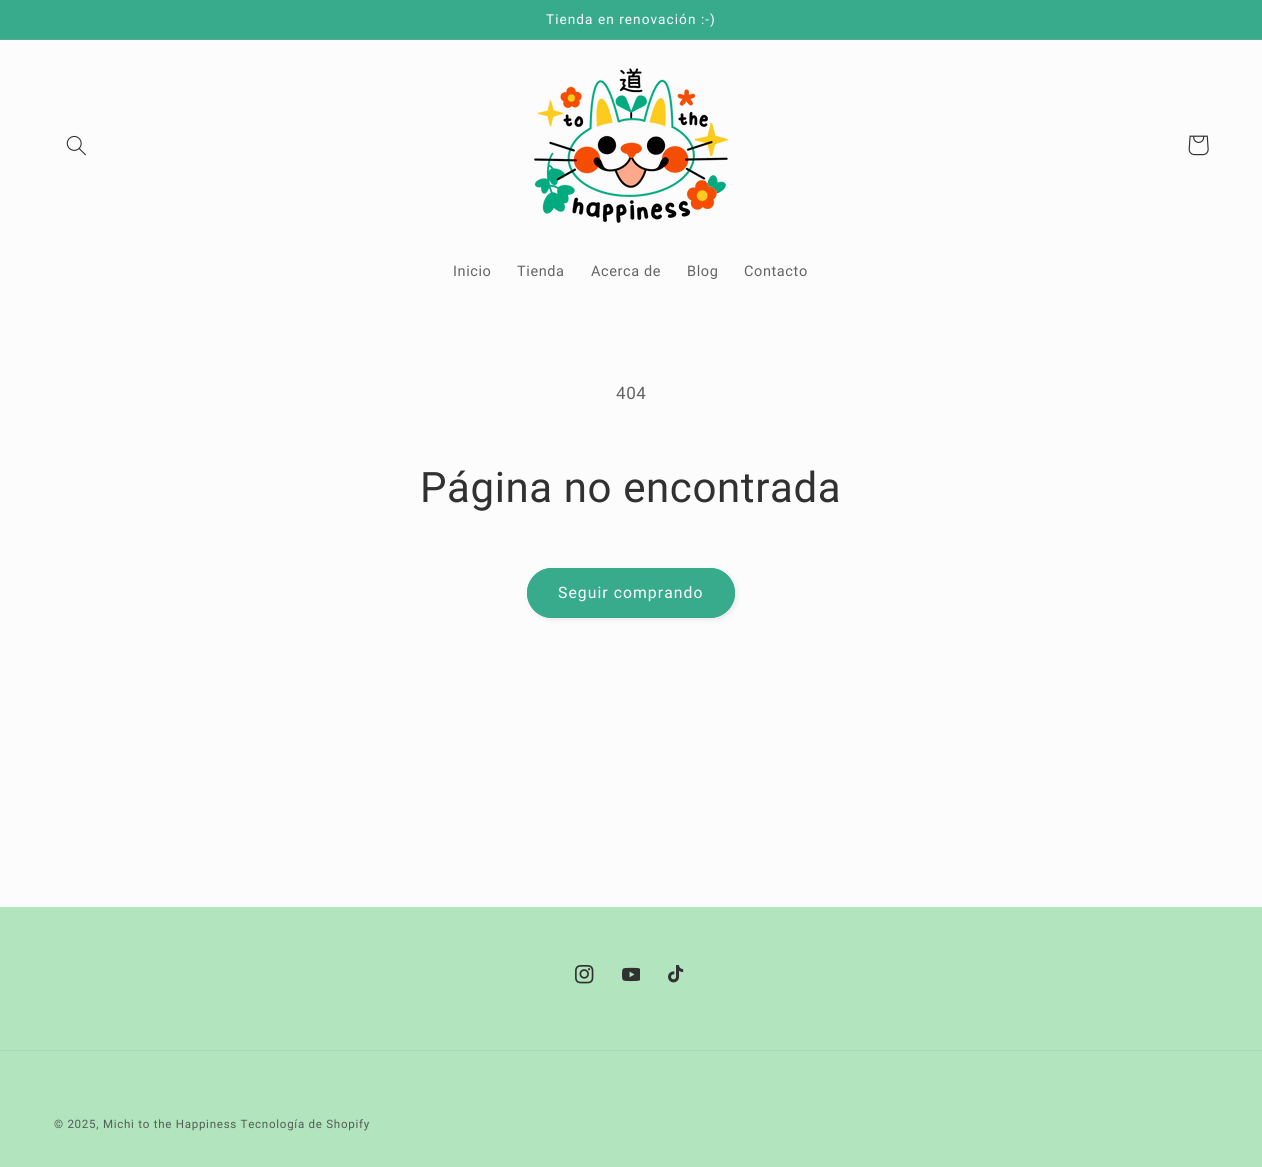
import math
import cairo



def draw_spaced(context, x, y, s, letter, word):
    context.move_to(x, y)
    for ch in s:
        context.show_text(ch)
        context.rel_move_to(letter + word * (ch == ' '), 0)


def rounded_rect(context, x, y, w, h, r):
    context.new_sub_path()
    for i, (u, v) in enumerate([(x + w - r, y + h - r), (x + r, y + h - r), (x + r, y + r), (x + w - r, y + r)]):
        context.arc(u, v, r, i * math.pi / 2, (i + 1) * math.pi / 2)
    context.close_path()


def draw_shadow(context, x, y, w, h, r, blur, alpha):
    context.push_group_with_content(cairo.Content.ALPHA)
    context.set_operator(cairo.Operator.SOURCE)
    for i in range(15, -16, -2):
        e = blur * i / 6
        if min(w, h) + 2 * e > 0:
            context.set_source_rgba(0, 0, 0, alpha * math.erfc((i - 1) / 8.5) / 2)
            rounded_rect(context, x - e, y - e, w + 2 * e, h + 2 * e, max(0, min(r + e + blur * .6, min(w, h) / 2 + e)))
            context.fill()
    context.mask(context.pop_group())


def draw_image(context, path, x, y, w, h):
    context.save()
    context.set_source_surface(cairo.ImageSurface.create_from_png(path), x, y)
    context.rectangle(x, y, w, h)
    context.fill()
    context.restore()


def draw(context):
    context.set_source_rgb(252 / 255, 252 / 255, 252 / 255)
    context.paint()
    context.set_source_rgb(55 / 255, 171 / 255, 140 / 255)
    context.rectangle(0, 0, 1262, 39)
    context.fill()
    context.set_source_rgb(71 / 255, 177 / 255, 149 / 255)
    context.rectangle(0, 39, 1262, 1)
    context.fill()
    draw_image(context, "images/1.png", 66, 135, 20, 21)
    draw_image(context, "images/2.png", 534, 68, 194, 155)
    draw_image(context, "images/3.png", 1188, 135, 21, 21)
    context.set_source_rgb(49 / 255, 49 / 255, 49 / 255)
    draw_shadow(context, 529, 570, 208, 50, 25, 2.5, 0.1)
    context.set_source_rgb(55 / 255, 171 / 255, 140 / 255)
    rounded_rect(context, 527, 568, 208, 50, 25)
    context.fill()
    rounded_rect(context, 527.5, 568.5, 207, 49, 24.5)
    context.set_line_width(1)
    context.stroke()
    context.set_source_rgb(178 / 255, 228 / 255, 190 / 255)
    context.rectangle(0, 907, 1262, 260)
    context.fill()
    draw_image(context, "images/4.png", 575, 965, 19, 19)
    draw_image(context, "images/5.png", 622, 967, 18, 15)
    draw_image(context, "images/6.png", 668, 965, 16, 18)
    context.set_source_rgb(168 / 255, 214 / 255, 179 / 255)
    context.rectangle(0, 1050, 1262, 1)
    context.fill()
    context.select_font_face("Roboto")
    context.set_font_size(13.6)
    context.set_source_rgb(252 / 255, 252 / 255, 252 / 255)
    draw_spaced(context, 546, 24, "Tienda en renovación :-)", 1.05, 0)
    context.set_font_size(14.5)
    context.set_source_rgb(100 / 255, 100 / 255, 100 / 255)
    draw_spaced(context, 453, 276, "Inicio", 0.6, 0)
    draw_spaced(context, 517, 276, "Tienda", 0.6, 0)
    draw_spaced(context, 591, 276, "Acerca de", 0.6, 0)
    draw_spaced(context, 687, 276, "Blog", 0.6, 0)
    draw_spaced(context, 744, 276, "Contacto", 0.6, 0)
    context.set_font_size(17)
    draw_spaced(context, 616, 399, "404", 0.6, 0)
    context.set_font_size(42)
    context.set_source_rgb(49 / 255, 49 / 255, 49 / 255)
    draw_spaced(context, 420, 502, "Página no encontrada", 0.6, 0)
    context.set_font_size(15.75)
    context.set_source_rgb(252 / 255, 252 / 255, 252 / 255)
    draw_spaced(context, 558, 598, "Seguir comprando", 1.05, 0)
    context.set_font_size(11.55)
    context.set_source_rgb(81 / 255, 94 / 255, 84 / 255)
    draw_spaced(context, 54, 1128, "© 2025, Michi to the Happiness Tecnología de Shopify", 0.73, 0)


surface = cairo.ImageSurface(cairo.Format.RGB24, 1262, 1167)
context = cairo.Context(surface)
options = cairo.FontOptions()
options.set_hint_metrics(cairo.HintMetrics.OFF)
options.set_hint_style(cairo.HintStyle.NONE)
context.set_font_options(options)
context.set_miter_limit(4)
draw(context)
surface.write_to_png("out.png")
